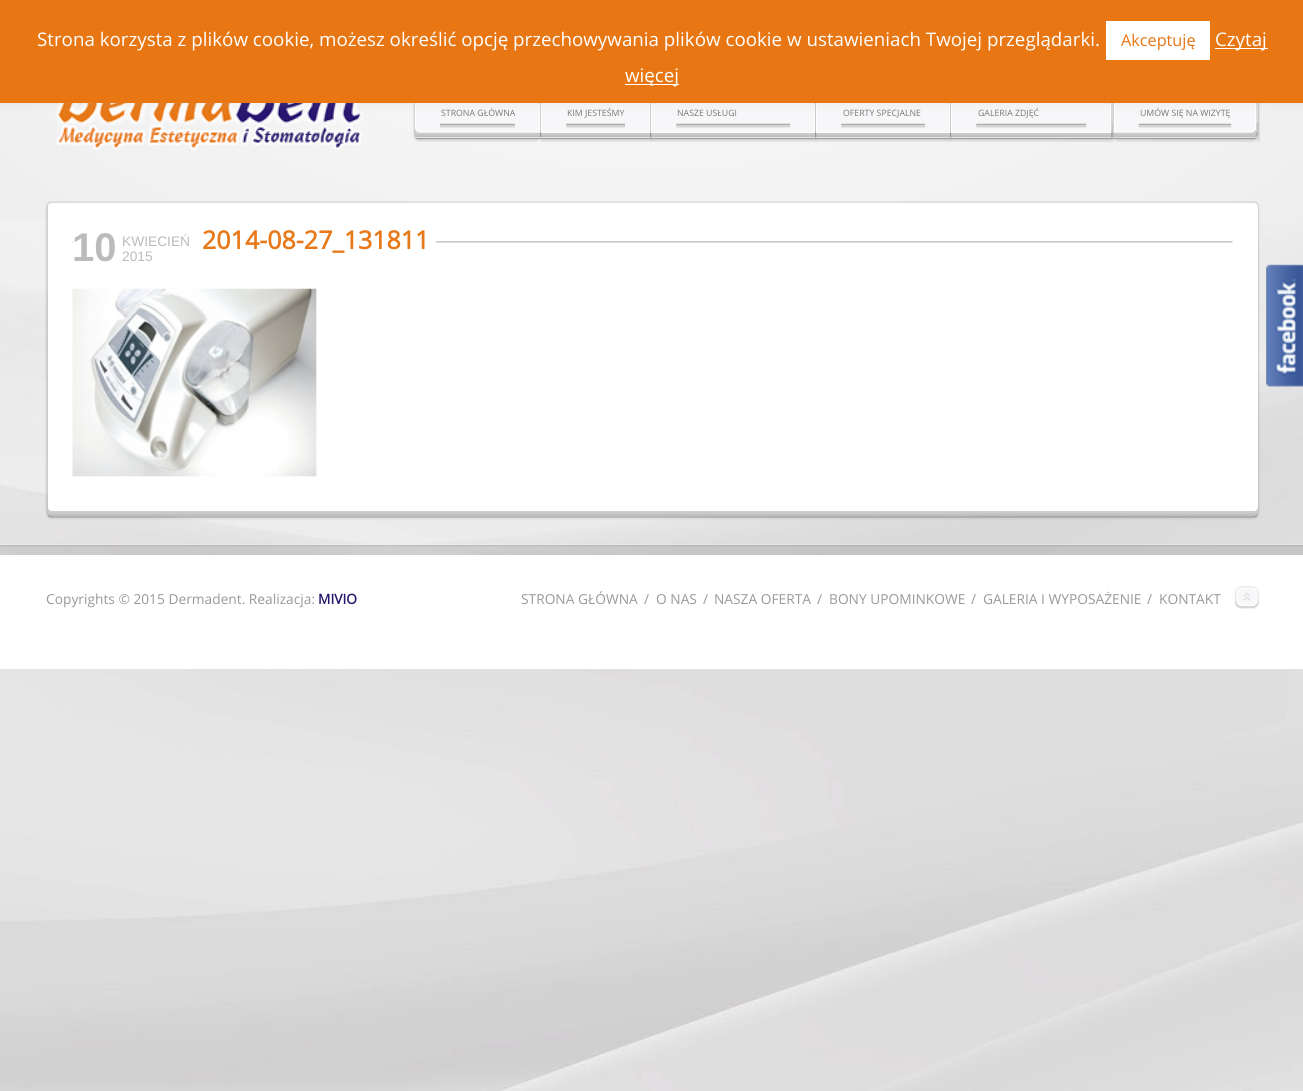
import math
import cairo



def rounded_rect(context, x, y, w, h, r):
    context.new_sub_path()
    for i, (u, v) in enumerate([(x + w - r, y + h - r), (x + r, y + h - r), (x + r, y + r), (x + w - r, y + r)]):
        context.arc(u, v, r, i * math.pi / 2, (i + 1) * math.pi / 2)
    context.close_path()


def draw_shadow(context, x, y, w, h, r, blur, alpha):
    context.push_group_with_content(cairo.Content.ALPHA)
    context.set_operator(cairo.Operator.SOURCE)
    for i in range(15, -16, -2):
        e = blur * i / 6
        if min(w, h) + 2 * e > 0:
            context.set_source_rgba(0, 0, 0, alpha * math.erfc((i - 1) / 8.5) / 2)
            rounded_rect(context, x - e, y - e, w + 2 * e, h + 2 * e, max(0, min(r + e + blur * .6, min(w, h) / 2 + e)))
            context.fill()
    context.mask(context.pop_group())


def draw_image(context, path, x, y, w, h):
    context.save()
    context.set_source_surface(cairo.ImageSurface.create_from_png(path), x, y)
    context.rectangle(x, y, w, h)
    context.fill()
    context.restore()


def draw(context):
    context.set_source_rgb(234 / 255, 234 / 255, 234 / 255)
    context.paint()
    draw_image(context, "images/1.png", 0, 220, 1303, 871)
    context.set_source_rgb(1, 1, 1)
    context.rectangle(0, 555, 1303, 114)
    context.fill()
    gradient = cairo.RadialGradient(0, 0, 0, 0, 0, 1)
    gradient.set_matrix(cairo.Matrix(1 / 1125, 0, 0, 1 / 500, -1 * 653 / 1125, -1 * 0 / 500))
    gradient.add_color_stop_rgba(0, 1, 1, 1, 0.75)
    gradient.add_color_stop_rgba(1, 1, 1, 1, 0)
    context.set_source(gradient)
    context.rectangle(0, 103, 1303, 302)
    context.fill()
    draw_image(context, "images/5.png", 56, 103, 308, 47)
    draw_image(context, "images/6.png", 58, 103, 306, 20)
    draw_image(context, "images/7.png", 414, 122, 845, 16)
    context.set_source_rgba(0, 0, 0, 0.25)
    context.rectangle(416, 138, 840, 1)
    context.fill()
    context.save()
    context.set_fill_rule(cairo.FillRule.EVEN_ODD)
    context.new_path()
    context.move_to(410, 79)
    context.line_to(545, 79)
    context.line_to(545, 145)
    context.line_to(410, 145)
    context.close_path()
    context.move_to(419, 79)
    context.line_to(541, 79)
    context.line_to(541, 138)
    context.line_to(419, 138)
    context.curve_to(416, 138, 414, 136, 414, 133)
    context.line_to(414, 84)
    context.curve_to(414, 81, 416, 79, 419, 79)
    context.close_path()
    context.clip()
    context.set_source_rgb(0, 0, 0)
    draw_shadow(context, 414, 83, 127, 58, 5, 1, 0.15)
    context.restore()
    draw_image(context, "images/8.png", 540, 103, 1, 35)
    context.set_source_rgb(247 / 255, 247 / 255, 249 / 255)
    context.new_path()
    context.move_to(419, 80)
    context.line_to(540, 80)
    context.line_to(540, 132)
    context.line_to(419, 132)
    context.curve_to(417, 132, 415, 130, 415, 128)
    context.line_to(415, 84)
    context.curve_to(415, 82, 417, 80, 419, 80)
    context.close_path()
    context.fill()
    context.new_path()
    context.move_to(419, 80.5)
    context.line_to(539.5, 80.5)
    context.line_to(539.5, 132)
    context.line_to(419, 132)
    context.curve_to(417, 132, 415.5, 130, 415.5, 127.5)
    context.line_to(415.5, 84)
    context.curve_to(415.5, 82, 417, 80.5, 419, 80.5)
    context.close_path()
    context.set_source_rgb(1, 1, 1)
    context.set_line_width(1.2)
    context.stroke()
    context.set_source_rgb(211 / 255, 211 / 255, 211 / 255)
    context.set_fill_rule(cairo.FillRule.EVEN_ODD)
    context.new_path()
    context.move_to(419, 79)
    context.line_to(540, 79)
    context.line_to(540, 132)
    context.line_to(419, 132)
    context.curve_to(416, 132, 414, 130, 414, 128)
    context.line_to(414, 84)
    context.curve_to(414, 81, 416, 79, 419, 79)
    context.close_path()
    context.move_to(419, 80)
    context.line_to(540, 80)
    context.line_to(540, 132)
    context.line_to(419, 132)
    context.curve_to(417, 132, 415, 130, 415, 128)
    context.line_to(415, 84)
    context.curve_to(415, 82, 417, 80, 419, 80)
    context.close_path()
    context.fill()
    context.save()
    context.new_path()
    context.move_to(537, 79)
    context.line_to(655, 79)
    context.line_to(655, 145)
    context.line_to(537, 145)
    context.close_path()
    context.move_to(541, 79)
    context.line_to(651, 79)
    context.line_to(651, 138)
    context.line_to(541, 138)
    context.close_path()
    context.clip()
    context.set_source_rgb(0, 0, 0)
    draw_shadow(context, 541, 83, 110, 58, 0, 1, 0.15)
    context.restore()
    draw_image(context, "images/10.png", 650, 103, 1, 35)
    context.set_source_rgb(247 / 255, 247 / 255, 249 / 255)
    context.rectangle(542, 103, 107, 29)
    context.fill()
    context.rectangle(541.5, 80.5, 108, 52)
    context.set_source_rgb(1, 1, 1)
    context.set_line_width(1)
    context.stroke()
    context.save()
    context.new_path()
    context.move_to(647, 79)
    context.line_to(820, 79)
    context.line_to(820, 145)
    context.line_to(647, 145)
    context.close_path()
    context.move_to(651, 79)
    context.line_to(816, 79)
    context.line_to(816, 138)
    context.line_to(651, 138)
    context.close_path()
    context.clip()
    context.set_source_rgb(0, 0, 0)
    draw_shadow(context, 651, 83, 165, 58, 0, 1, 0.15)
    context.restore()
    draw_image(context, "images/12.png", 815, 103, 1, 35)
    context.set_source_rgb(247 / 255, 247 / 255, 249 / 255)
    context.rectangle(652, 103, 162, 29)
    context.fill()
    context.rectangle(651.5, 80.5, 163, 52)
    context.set_source_rgb(1, 1, 1)
    context.stroke()
    context.save()
    context.new_path()
    context.move_to(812, 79)
    context.line_to(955, 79)
    context.line_to(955, 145)
    context.line_to(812, 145)
    context.close_path()
    context.move_to(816, 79)
    context.line_to(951, 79)
    context.line_to(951, 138)
    context.line_to(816, 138)
    context.close_path()
    context.clip()
    context.set_source_rgb(0, 0, 0)
    draw_shadow(context, 816, 83, 135, 58, 0, 1, 0.15)
    context.restore()
    draw_image(context, "images/12.png", 950, 103, 1, 35)
    context.set_source_rgb(247 / 255, 247 / 255, 249 / 255)
    context.rectangle(817, 103, 132, 29)
    context.fill()
    context.rectangle(816.5, 80.5, 133, 52)
    context.set_source_rgb(1, 1, 1)
    context.stroke()
    context.save()
    context.new_path()
    context.move_to(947, 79)
    context.line_to(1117, 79)
    context.line_to(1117, 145)
    context.line_to(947, 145)
    context.close_path()
    context.move_to(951, 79)
    context.line_to(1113, 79)
    context.line_to(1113, 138)
    context.line_to(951, 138)
    context.close_path()
    context.clip()
    context.set_source_rgb(0, 0, 0)
    draw_shadow(context, 951, 83, 162, 58, 0, 1, 0.15)
    context.restore()
    draw_image(context, "images/15.png", 1111, 103, 2, 35)
    context.set_source_rgb(247 / 255, 247 / 255, 249 / 255)
    context.rectangle(952, 103, 158, 29)
    context.fill()
    context.rectangle(951.5, 80.5, 159, 52)
    context.set_source_rgb(1, 1, 1)
    context.stroke()
    context.set_source_rgb(0, 0, 0)
    draw_shadow(context, 1258, 83, 1, 58, 1, 1, 0.15)
    context.set_source_rgb(211 / 255, 211 / 255, 211 / 255)
    context.rectangle(1258, 103, 1, 20)
    context.fill()
    context.save()
    context.new_path()
    context.move_to(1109, 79)
    context.line_to(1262, 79)
    context.line_to(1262, 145)
    context.line_to(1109, 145)
    context.close_path()
    context.move_to(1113, 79)
    context.line_to(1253, 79)
    context.curve_to(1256, 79, 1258, 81, 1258, 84)
    context.line_to(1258, 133)
    context.curve_to(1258, 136, 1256, 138, 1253, 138)
    context.line_to(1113, 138)
    context.close_path()
    context.clip()
    context.set_source_rgb(0, 0, 0)
    draw_shadow(context, 1113, 83, 145, 58, 5, 1, 0.15)
    context.restore()
    draw_image(context, "images/17.png", 1256, 103, 2, 33)
    context.set_source_rgb(247 / 255, 247 / 255, 249 / 255)
    context.set_fill_rule(cairo.FillRule.WINDING)
    context.new_path()
    context.move_to(1114, 80)
    context.line_to(1251, 80)
    context.curve_to(1254, 80, 1256, 82, 1256, 84)
    context.line_to(1256, 128)
    context.curve_to(1256, 130, 1254, 132, 1251, 132)
    context.line_to(1114, 132)
    context.close_path()
    context.fill()
    context.new_path()
    context.move_to(1114.5, 80.5)
    context.line_to(1251, 80.5)
    context.curve_to(1253.5, 80.5, 1255.5, 82, 1255.5, 84)
    context.line_to(1255.5, 127.5)
    context.curve_to(1255.5, 130, 1253.5, 132, 1251, 132)
    context.line_to(1114.5, 132)
    context.close_path()
    context.set_source_rgb(1, 1, 1)
    context.set_line_width(1.2)
    context.stroke()
    context.set_source_rgb(211 / 255, 211 / 255, 211 / 255)
    context.rectangle(1113, 103, 1, 30)
    context.fill()
    context.set_source_rgb(172 / 255, 171 / 255, 171 / 255)
    draw_shadow(context, 0, -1, 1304, 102, 0, 6, 0.3)
    context.set_source_rgb(231 / 255, 118 / 255, 19 / 255)
    context.rectangle(0, 0, 1303, 103)
    context.fill()
    context.set_source_rgb(1, 1, 1)
    context.rectangle(1106, 21, 104, 39)
    context.fill()
    context.rectangle(1215, 48, 53, 1)
    context.fill()
    context.rectangle(625, 84, 54, 1)
    context.fill()
    draw_image(context, "images/2.png", 1266, 264, 37, 123)
    draw_image(context, "images/3.png", 1235, 586, 24, 23)
    draw_image(context, "images/4.png", 0, 544, 1303, 11)
    draw_image(context, "images/9.png", 440, 123, 75, 5)
    draw_image(context, "images/11.png", 566, 123, 59, 5)
    draw_image(context, "images/13.png", 676, 123, 114, 5)
    draw_image(context, "images/14.png", 841, 123, 84, 5)
    draw_image(context, "images/16.png", 976, 123, 111, 5)
    draw_image(context, "images/18.png", 1138, 123, 94, 5)
    context.set_source_rgb(0, 0, 0)
    draw_shadow(context, 46, 203, 1213, 316, 5, 1, 0.08)
    context.set_source_rgb(210 / 255, 210 / 255, 210 / 255)
    rounded_rect(context, 48, 203, 1210, 313, 4)
    context.fill()
    draw_image(context, "images/19.png", 47, 501, 1210, 15)
    context.new_path()
    context.move_to(1257, 515.5)
    context.line_to(1254, 517)
    context.line_to(51, 517)
    context.line_to(48, 515.5)
    context.set_source_rgba(0, 0, 0, 0.25)
    context.stroke()
    context.new_path()
    context.move_to(48, 515.5)
    context.curve_to(47.5, 515, 47, 513.5, 47, 512.5)
    context.line_to(47, 206)
    context.curve_to(47, 205, 47.5, 204, 48, 203)
    context.curve_to(49, 202.5, 50, 202, 51, 202)
    context.line_to(1254, 202)
    context.curve_to(1255, 202, 1256, 202.5, 1257, 203)
    context.curve_to(1257.5, 204, 1258, 205, 1258, 206)
    context.line_to(1258, 512.5)
    context.curve_to(1258, 513.5, 1257.5, 515, 1257, 515.5)
    context.set_source_rgba(0, 0, 0, 0.1)
    context.stroke()
    context.set_source_rgb(1, 1, 1)
    rounded_rect(context, 48.5, 203.5, 1209, 307, 3.5)
    context.fill_preserve()
    context.set_line_width(1)
    context.stroke()
    draw_image(context, "images/20.png", 72, 241, 1161, 2)
    context.rectangle(73, 241, 363, 2)
    context.fill()
    draw_image(context, "images/21.png", 72, 288, 245, 189)
    context.select_font_face("Open Sans")
    context.set_font_size(18.75)
    context.move_to(37, 46)
    context.show_text("Strona korzysta z plików cookie, możesz określić opcję przechowywania plików cookie w ustawieniach Twojej przeglądarki.")
    context.set_font_size(16.25)
    context.set_source_rgb(231 / 255, 118 / 255, 19 / 255)
    context.move_to(1121, 46)
    context.show_text("Akceptuję")
    context.set_font_size(18.75)
    context.set_source_rgb(1, 1, 1)
    context.move_to(1215, 46)
    context.show_text("Czytaj")
    context.move_to(625, 82)
    context.show_text("więcej")
    context.set_font_size(13.75)
    context.set_source_rgb(153 / 255, 153 / 255, 153 / 255)
    context.move_to(46, 604)
    context.show_text("Copyrights © 2015 Dermadent. Realizacja:")
    context.select_font_face("Open Sans", cairo.FontSlant.NORMAL, cairo.FontWeight.BOLD)
    context.set_source_rgb(40 / 255, 22 / 255, 111 / 255)
    context.move_to(318, 604)
    context.show_text("MIVIO")
    context.select_font_face("Open Sans")
    context.set_source_rgb(153 / 255, 153 / 255, 153 / 255)
    context.move_to(521, 604)
    context.show_text("STRONA GŁÓWNA")
    context.move_to(644, 604)
    context.show_text("/")
    context.move_to(656, 604)
    context.show_text("O NAS")
    context.move_to(703, 604)
    context.show_text("/")
    context.move_to(714, 604)
    context.show_text("NASZA OFERTA")
    context.move_to(817, 604)
    context.show_text("/")
    context.move_to(829, 604)
    context.show_text("BONY UPOMINKOWE")
    context.move_to(971, 604)
    context.show_text("/")
    context.move_to(983, 604)
    context.show_text("GALERIA I WYPOSAŻENIE")
    context.move_to(1147, 604)
    context.show_text("/")
    context.move_to(1159, 604)
    context.show_text("KONTAKT")
    context.set_font_size(8.75)
    context.set_source_rgb(119 / 255, 119 / 255, 119 / 255)
    context.move_to(441, 116)
    context.show_text("STRONA GŁÓWNA")
    context.move_to(567, 116)
    context.show_text("KIM JESTEŚMY")
    context.move_to(677, 116)
    context.show_text("NASZE USŁUGI")
    context.move_to(843, 116)
    context.show_text("OFERTY SPECJALNE")
    context.move_to(978, 116)
    context.show_text("GALERIA ZDJĘĆ")
    context.move_to(1140, 116)
    context.show_text("UMÓW SIĘ NA WIZYTĘ")
    context.select_font_face("Liberation Sans", cairo.FontSlant.NORMAL, cairo.FontWeight.BOLD)
    context.set_font_size(40)
    context.set_source_rgb(187 / 255, 187 / 255, 187 / 255)
    context.move_to(72, 261)
    context.show_text("10")
    context.select_font_face("Liberation Sans")
    context.set_font_size(13.75)
    context.move_to(122, 246)
    context.show_text("KWIECIEŃ")
    context.move_to(122, 261)
    context.show_text("2015")
    context.select_font_face("Open Sans", cairo.FontSlant.NORMAL, cairo.FontWeight.BOLD)
    context.set_font_size(25)
    context.set_source_rgb(231 / 255, 121 / 255, 25 / 255)
    context.move_to(202, 249)
    context.show_text("2014-08-27_131811")


surface = cairo.ImageSurface(cairo.Format.RGB24, 1303, 1091)
context = cairo.Context(surface)
options = cairo.FontOptions()
options.set_hint_metrics(cairo.HintMetrics.OFF)
options.set_hint_style(cairo.HintStyle.NONE)
context.set_font_options(options)
context.set_miter_limit(4)
draw(context)
surface.write_to_png("out.png")
